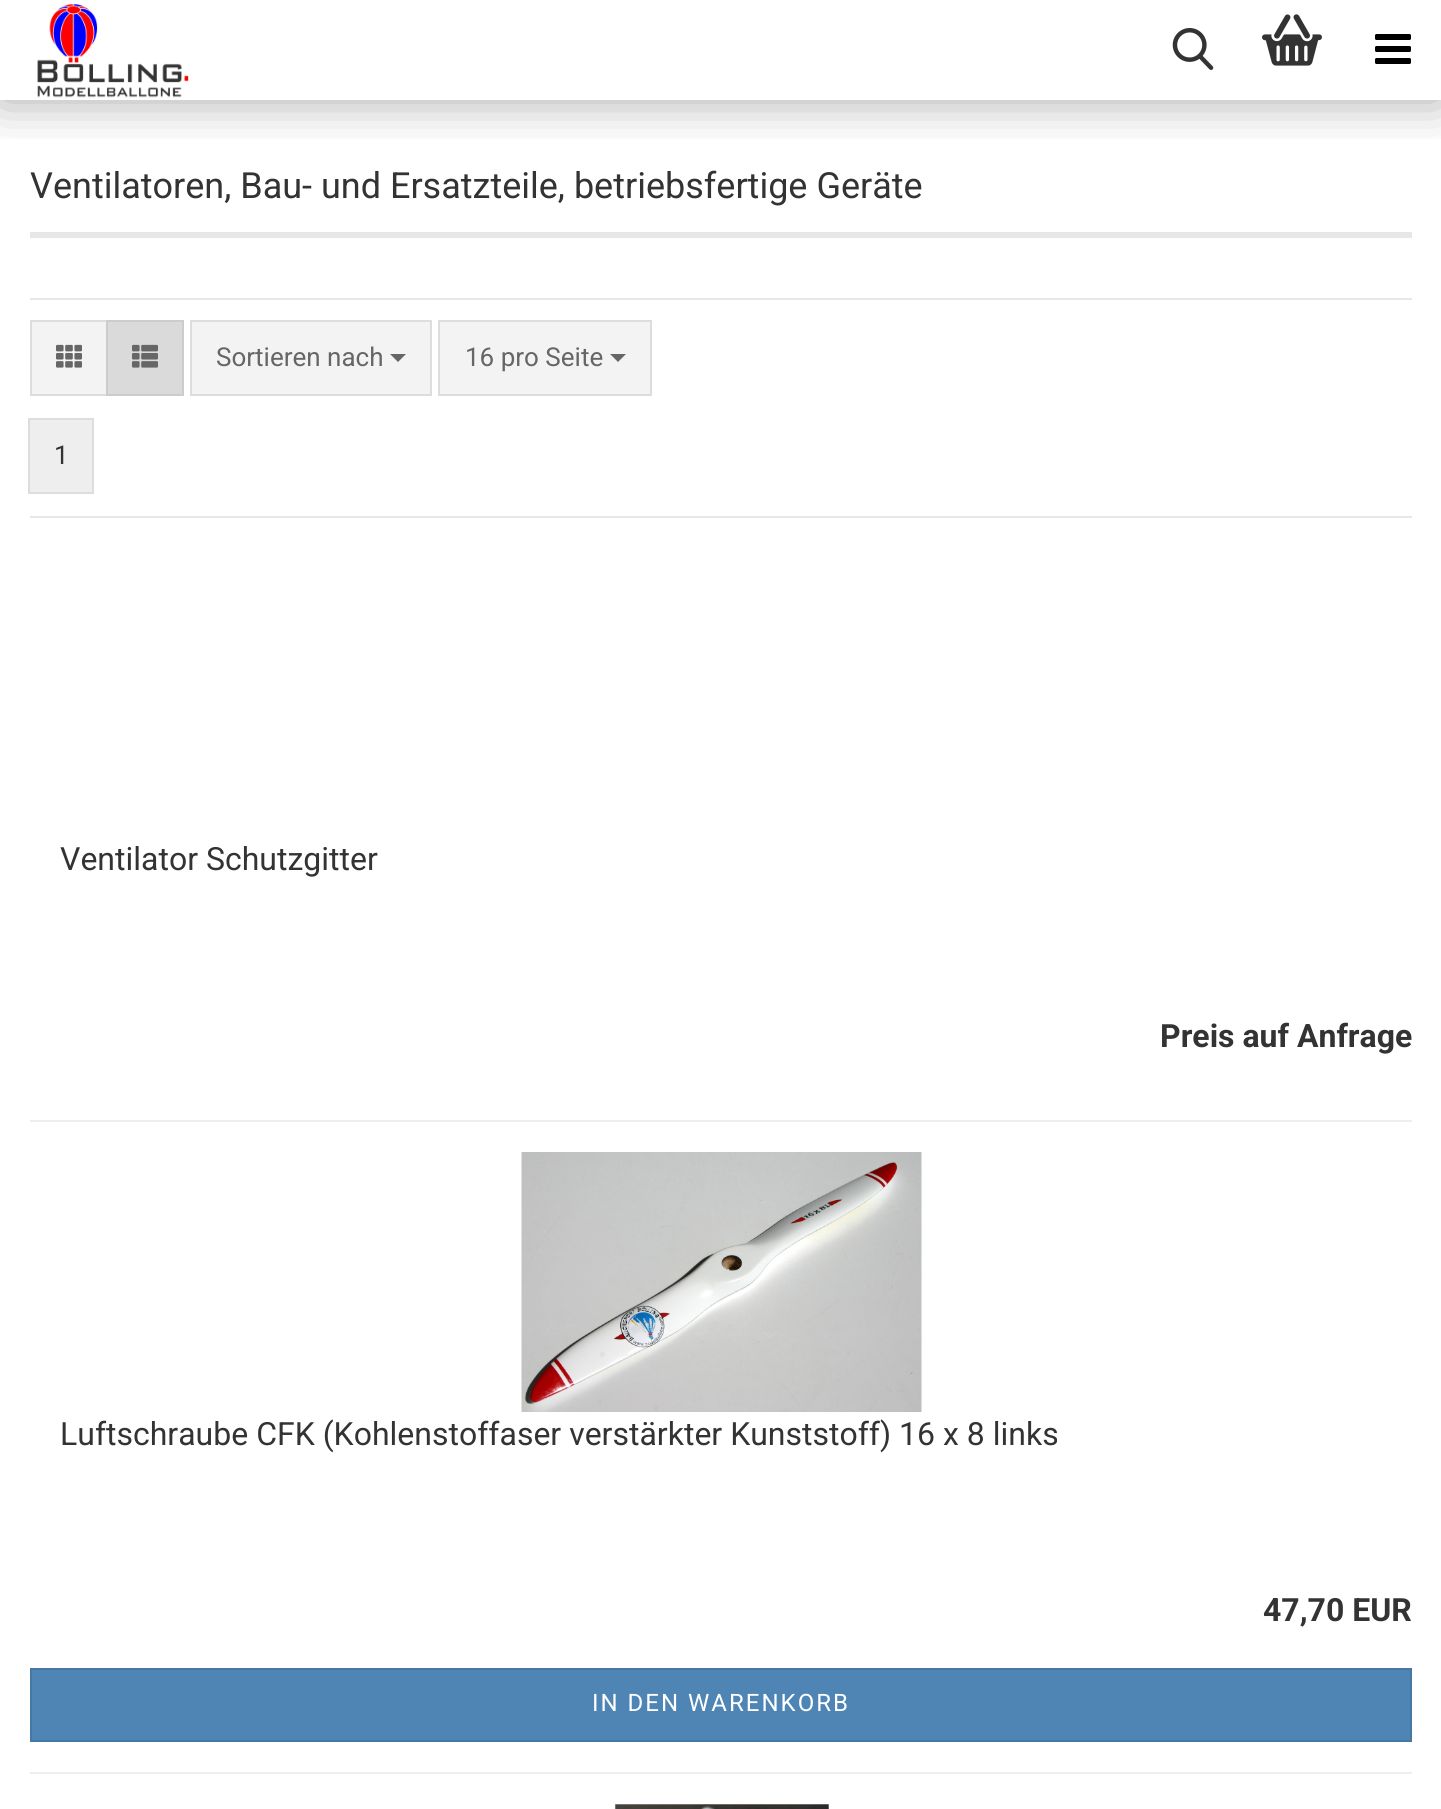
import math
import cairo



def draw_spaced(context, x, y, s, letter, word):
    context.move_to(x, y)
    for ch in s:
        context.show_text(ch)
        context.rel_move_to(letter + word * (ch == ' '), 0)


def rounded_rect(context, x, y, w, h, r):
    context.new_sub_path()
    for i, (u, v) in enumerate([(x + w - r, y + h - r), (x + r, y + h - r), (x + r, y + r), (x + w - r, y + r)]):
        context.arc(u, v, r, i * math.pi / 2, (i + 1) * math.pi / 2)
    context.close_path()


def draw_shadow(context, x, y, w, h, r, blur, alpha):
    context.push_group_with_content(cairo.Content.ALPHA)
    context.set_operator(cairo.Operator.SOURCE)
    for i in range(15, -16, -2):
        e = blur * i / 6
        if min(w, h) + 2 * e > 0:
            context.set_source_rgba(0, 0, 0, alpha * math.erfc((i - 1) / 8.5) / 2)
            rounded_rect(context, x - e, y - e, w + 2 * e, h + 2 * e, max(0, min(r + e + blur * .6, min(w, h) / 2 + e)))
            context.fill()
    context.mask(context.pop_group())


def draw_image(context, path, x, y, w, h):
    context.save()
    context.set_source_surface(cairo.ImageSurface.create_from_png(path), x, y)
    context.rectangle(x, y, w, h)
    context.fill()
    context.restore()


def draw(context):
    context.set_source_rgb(1, 1, 1)
    context.paint()
    context.save()
    context.rectangle(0, 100, 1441, 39)
    context.clip()
    context.set_source_rgb(0, 0, 0)
    draw_shadow(context, 0, 0, 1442, 100, 0, 25, 0.35)
    context.restore()
    draw_image(context, "images/1.png", 37, 4, 152, 94)
    draw_image(context, "images/2.png", 1172, 28, 42, 42)
    draw_image(context, "images/3.png", 1262, 14, 60, 52)
    draw_image(context, "images/4.png", 1375, 34, 36, 30)
    context.set_source_rgb(231 / 255, 231 / 255, 231 / 255)
    context.rectangle(30, 232, 1382, 6)
    context.fill()
    context.rectangle(30, 298, 1382, 2)
    context.fill()
    context.rectangle(30, 516, 1382, 2)
    context.fill()
    context.set_source_rgb(243 / 255, 243 / 255, 243 / 255)
    context.rectangle(31, 321, 76, 74)
    context.fill_preserve()
    context.set_source_rgb(221 / 255, 221 / 255, 221 / 255)
    context.stroke()
    draw_image(context, "images/5.png", 56, 344, 26, 24)
    context.set_source_rgb(218 / 255, 218 / 255, 218 / 255)
    context.rectangle(107, 321, 76, 74)
    context.fill_preserve()
    context.set_source_rgb(204 / 255, 204 / 255, 204 / 255)
    context.stroke()
    draw_image(context, "images/6.png", 132, 344, 26, 24)
    context.set_source_rgb(243 / 255, 243 / 255, 243 / 255)
    context.rectangle(191, 321, 240, 74)
    context.fill_preserve()
    context.set_source_rgb(221 / 255, 221 / 255, 221 / 255)
    context.stroke()
    context.set_source_rgb(102 / 255, 102 / 255, 102 / 255)
    context.new_path()
    context.move_to(390, 354)
    context.line_to(406, 354)
    context.line_to(398, 362)
    context.close_path()
    context.fill()
    context.set_source_rgb(243 / 255, 243 / 255, 243 / 255)
    context.rectangle(439, 321, 212, 74)
    context.fill_preserve()
    context.set_source_rgb(221 / 255, 221 / 255, 221 / 255)
    context.stroke()
    context.set_source_rgb(102 / 255, 102 / 255, 102 / 255)
    context.new_path()
    context.move_to(610, 354)
    context.line_to(626, 354)
    context.line_to(618, 362)
    context.close_path()
    context.fill()
    context.set_source_rgb(238 / 255, 238 / 255, 238 / 255)
    context.rectangle(29, 419, 64, 74)
    context.fill_preserve()
    context.set_source_rgb(221 / 255, 221 / 255, 221 / 255)
    context.stroke()
    context.set_source_rgb(238 / 255, 238 / 255, 238 / 255)
    context.rectangle(30, 1120, 1382, 2)
    context.fill()
    context.rectangle(30, 1772, 1382, 2)
    context.fill()
    draw_image(context, "images/7.png", 521, 1152, 401, 260)
    context.set_source_rgb(78 / 255, 133 / 255, 181 / 255)
    context.rectangle(31, 1669, 1380, 72)
    context.fill_preserve()
    context.set_source_rgb(69 / 255, 120 / 255, 165 / 255)
    context.stroke()
    draw_image(context, "images/8.png", 614, 1804, 215, 5)
    context.select_font_face("Roboto")
    context.set_font_size(36)
    context.set_source_rgb(51 / 255, 51 / 255, 51 / 255)
    context.move_to(30, 198)
    context.show_text("Ventilatoren, Bau- und Ersatzteile, betriebsfertige Geräte")
    context.set_font_size(26)
    context.set_source_rgb(102 / 255, 102 / 255, 102 / 255)
    context.move_to(216, 366)
    context.show_text("Sortieren nach")
    context.move_to(465, 366)
    context.show_text("16 pro Seite")
    context.set_source_rgb(51 / 255, 51 / 255, 51 / 255)
    context.move_to(54, 464)
    context.show_text("1")
    context.set_font_size(32)
    context.move_to(60, 870)
    context.show_text("Ventilator Schutzgitter")
    context.select_font_face("Roboto", cairo.FontSlant.NORMAL, cairo.FontWeight.BOLD)
    context.move_to(1160, 1047)
    context.show_text("Preis auf Anfrage")
    context.select_font_face("Roboto")
    context.move_to(60, 1445)
    context.show_text("Luftschraube CFK (Kohlenstoffaser verstärkter Kunststoff) 16 x 8 links")
    context.select_font_face("Roboto", cairo.FontSlant.NORMAL, cairo.FontWeight.BOLD)
    context.move_to(1263, 1621)
    context.show_text("47,70 EUR")
    context.select_font_face("Roboto")
    context.set_font_size(24)
    context.set_source_rgb(1, 1, 1)
    draw_spaced(context, 592, 1711, "IN DEN WARENKORB", 2, 0)


surface = cairo.ImageSurface(cairo.Format.RGB24, 1441, 1809)
context = cairo.Context(surface)
options = cairo.FontOptions()
options.set_hint_metrics(cairo.HintMetrics.OFF)
options.set_hint_style(cairo.HintStyle.NONE)
context.set_font_options(options)
context.set_miter_limit(4)
draw(context)
surface.write_to_png("out.png")
